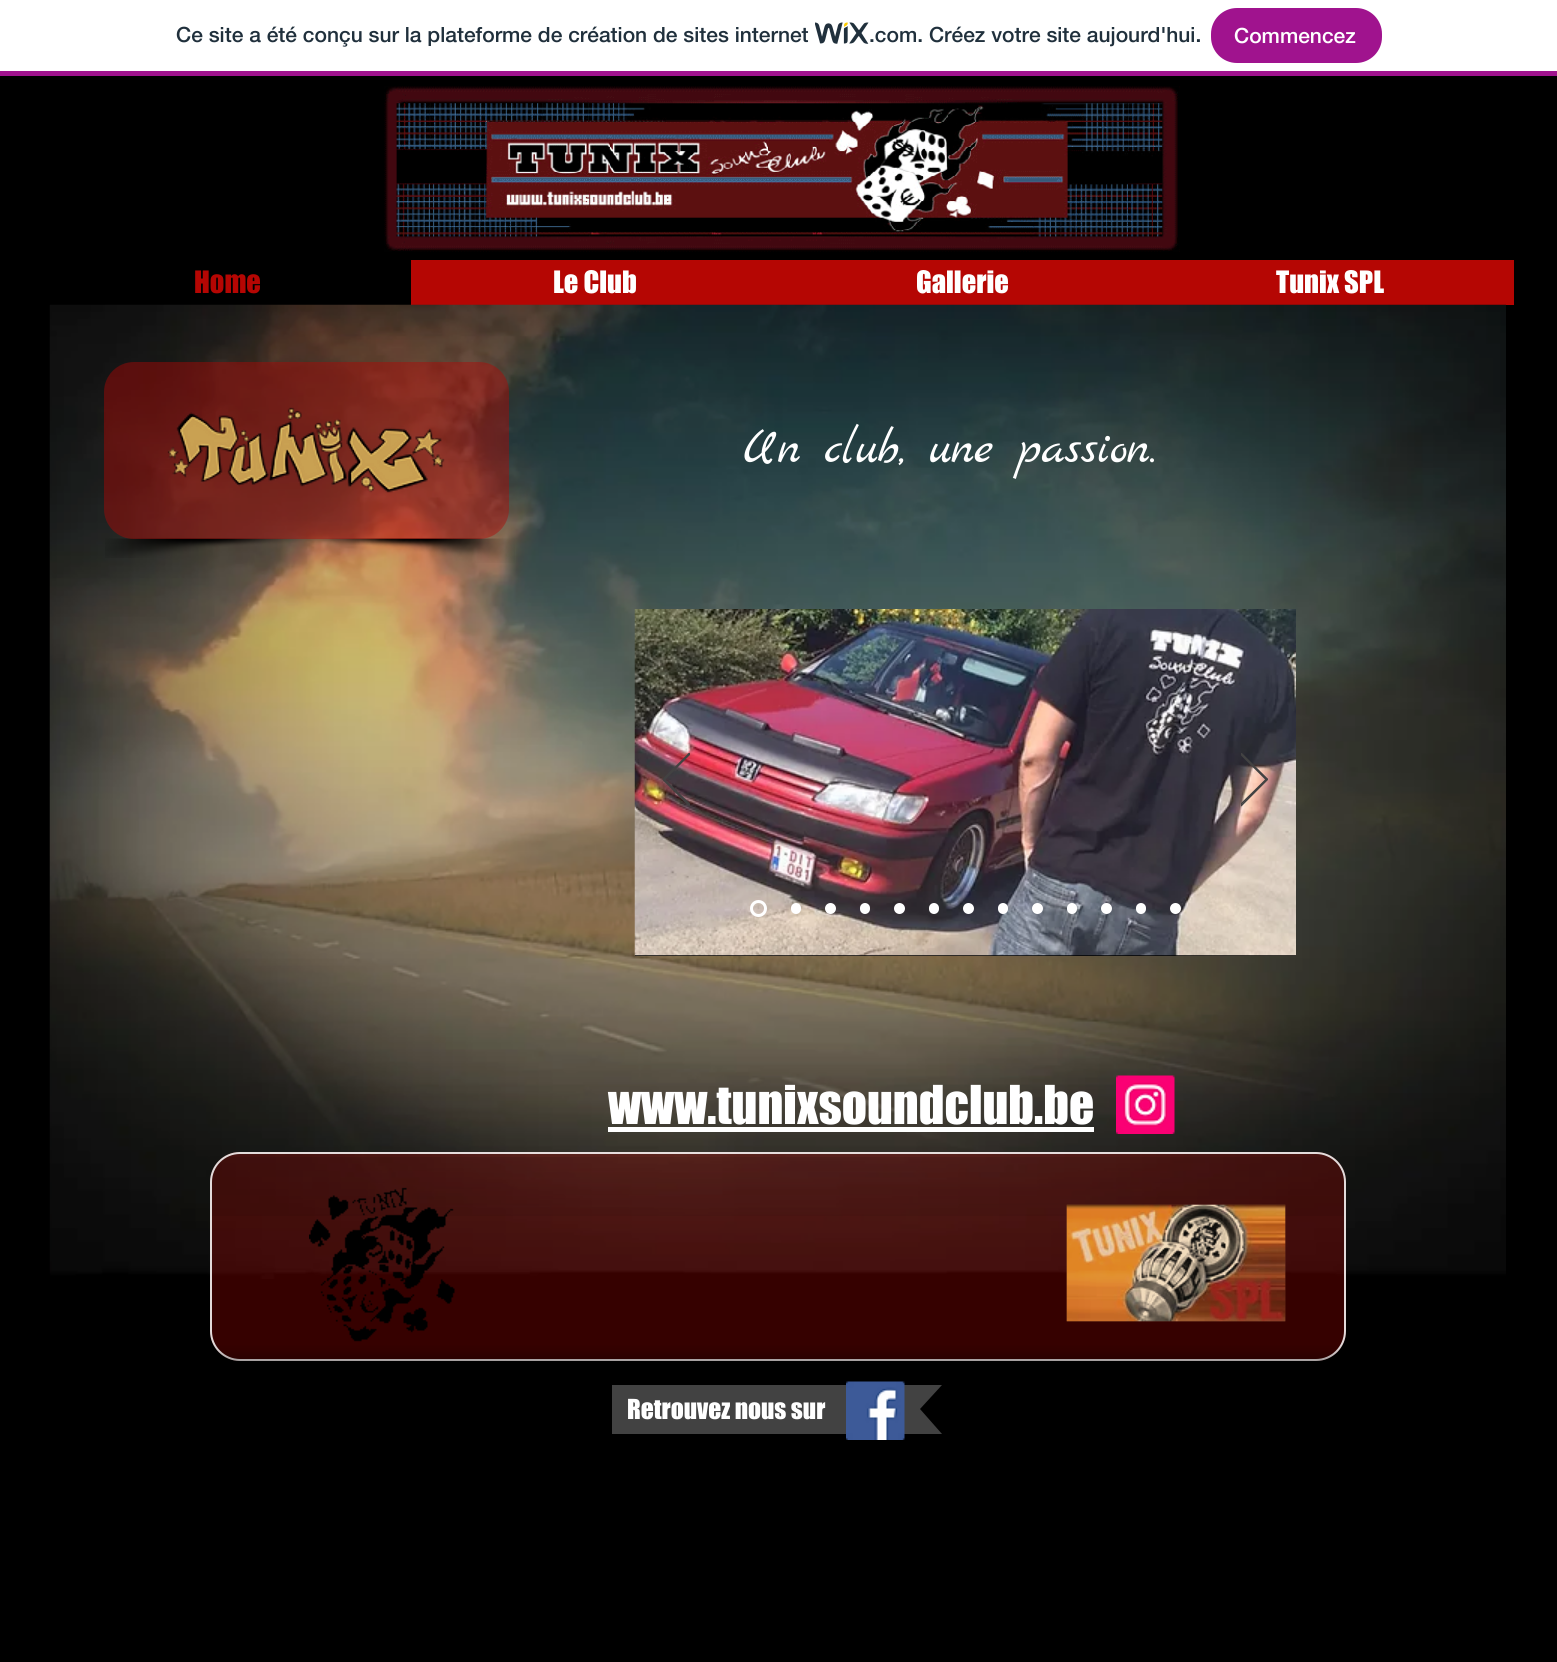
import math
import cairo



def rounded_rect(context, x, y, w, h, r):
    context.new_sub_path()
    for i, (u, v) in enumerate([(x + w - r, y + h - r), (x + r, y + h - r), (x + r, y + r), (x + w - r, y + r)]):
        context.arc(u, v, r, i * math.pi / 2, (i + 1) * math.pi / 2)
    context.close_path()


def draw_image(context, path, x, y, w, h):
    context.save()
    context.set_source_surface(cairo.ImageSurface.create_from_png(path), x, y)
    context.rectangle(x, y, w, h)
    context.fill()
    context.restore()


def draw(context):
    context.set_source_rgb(0, 0, 0)
    context.paint()
    context.set_source_rgb(1, 1, 1)
    context.rectangle(0, 0, 1557, 71)
    context.fill()
    context.set_source_rgb(160 / 255, 19 / 255, 142 / 255)
    context.rectangle(0, 71, 1557, 5)
    context.fill()
    draw_image(context, "images/1.png", 815, 22, 54, 22)
    rounded_rect(context, 1212, 9, 169, 53, 25)
    context.fill_preserve()
    context.stroke()
    draw_image(context, "images/2.png", 384, 86, 796, 166)
    context.set_source_rgb(181 / 255, 6 / 255, 3 / 255)
    context.rectangle(411, 260, 1103, 45)
    context.fill()
    draw_image(context, "images/3.png", 49, 304, 1457, 975)
    draw_image(context, "images/5.png", 105, 538, 201, 20)
    draw_image(context, "images/6.png", 306, 538, 209, 25)
    context.set_source_rgba(181 / 255, 6 / 255, 3 / 255, 0.43)
    rounded_rect(context, 104, 362, 405, 177, 30)
    context.fill()
    draw_image(context, "images/4.png", 167, 407, 278, 86)
    context.set_source_rgb(0, 0, 0)
    context.rectangle(635, 955, 661, 1)
    context.fill()
    draw_image(context, "images/7.png", 634, 609, 662, 347)
    context.save()
    context.rectangle(663, 753, 27, 54)
    context.clip()
    context.new_path()
    context.move_to(689, 805.5)
    context.line_to(663, 779.5)
    context.line_to(689, 753.5)
    context.line_to(690, 754)
    context.line_to(664.5, 779.5)
    context.line_to(690, 804.5)
    context.close_path()
    context.set_source_rgb(66 / 255, 66 / 255, 66 / 255)
    context.set_line_width(1.3)
    context.stroke()
    context.restore()
    context.set_source_rgb(66 / 255, 66 / 255, 66 / 255)
    context.new_path()
    context.move_to(1241, 805)
    context.line_to(1268, 779)
    context.line_to(1241, 753)
    context.line_to(1241, 754)
    context.line_to(1266, 779)
    context.close_path()
    context.fill()
    context.save()
    context.rectangle(1241, 753, 27, 54)
    context.clip()
    context.new_path()
    context.move_to(1241.5, 805.5)
    context.line_to(1267.5, 779.5)
    context.line_to(1241.5, 753.5)
    context.line_to(1240.5, 754)
    context.line_to(1266, 779.5)
    context.line_to(1240.5, 804.5)
    context.close_path()
    context.set_line_width(1.3)
    context.stroke()
    context.restore()
    context.arc(758.5, 908.5, 7, 0, 2 * math.pi)
    context.set_source_rgb(1, 1, 1)
    context.set_line_width(3)
    context.stroke()
    rounded_rect(context, 791, 903, 10, 11, 5)
    context.fill()
    context.arc(830.5, 908.5, 5.5, 0, 2 * math.pi)
    context.fill()
    rounded_rect(context, 860, 903, 10, 11, 5)
    context.fill()
    context.arc(899.5, 908.5, 5.5, 0, 2 * math.pi)
    context.fill()
    rounded_rect(context, 929, 903, 10, 11, 5)
    context.fill()
    context.arc(968.5, 908.5, 5.5, 0, 2 * math.pi)
    context.fill()
    rounded_rect(context, 998, 903, 10, 11, 5)
    context.fill()
    context.arc(1037.5, 908.5, 5.5, 0, 2 * math.pi)
    context.fill()
    rounded_rect(context, 1067, 903, 10, 11, 5)
    context.fill()
    context.arc(1106.5, 908.5, 5.5, 0, 2 * math.pi)
    context.fill()
    rounded_rect(context, 1136, 903, 10, 11, 5)
    context.fill()
    context.arc(1175.5, 908.5, 5.5, 0, 2 * math.pi)
    context.fill()
    context.rectangle(608, 1127, 486, 5)
    context.fill()
    draw_image(context, "images/8.png", 1116, 1075, 59, 59)
    context.set_source_rgba(181 / 255, 6 / 255, 3 / 255, 0.3)
    rounded_rect(context, 210, 1152, 1136, 209, 30)
    context.fill()
    draw_image(context, "images/9.png", 210, 1157, 1135, 59)
    rounded_rect(context, 211, 1153, 1134, 207, 29)
    context.set_source_rgba(1, 1, 1, 0.85)
    context.set_line_width(2)
    context.stroke()
    draw_image(context, "images/10.png", 309, 1187, 146, 155)
    draw_image(context, "images/11.png", 1066, 1204, 220, 118)
    draw_image(context, "images/12.png", 96, 1345, 1365, 16)
    context.set_source_rgb(66 / 255, 66 / 255, 66 / 255)
    context.new_path()
    context.move_to(942, 1434)
    context.line_to(612, 1434)
    context.line_to(612, 1385)
    context.line_to(942, 1385)
    context.line_to(920, 1409)
    context.close_path()
    context.fill()
    draw_image(context, "images/13.png", 846, 1381, 59, 59)
    context.select_font_face("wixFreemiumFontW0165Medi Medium")
    context.set_font_size(21)
    context.set_source_rgb(32 / 255, 48 / 255, 60 / 255)
    context.move_to(176, 42)
    context.show_text("Ce site a été conçu sur la plateforme de création de sites internet")
    context.move_to(869, 42)
    context.show_text(".com. Créez votre site aujourd'hui.")
    context.set_source_rgb(1, 1, 1)
    context.move_to(1234, 43)
    context.show_text("Commencez")
    context.select_font_face("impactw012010")
    context.set_font_size(28.5)
    context.set_source_rgb(181 / 255, 6 / 255, 3 / 255)
    context.move_to(194, 293)
    context.show_text("Home")
    context.set_source_rgb(1, 1, 1)
    context.move_to(553, 293)
    context.show_text("Le Club")
    context.move_to(916, 293)
    context.show_text("Gallerie")
    context.move_to(1276, 293)
    context.show_text("Tunix SPL")
    context.select_font_face("Marck Script")
    context.set_font_size(49.5)
    context.move_to(743, 462)
    context.show_text("Un club, une passion.")
    context.select_font_face("impactw012010")
    context.move_to(608, 1124)
    context.show_text("www.tunixsoundclub.be")
    context.set_font_size(25.5)
    context.move_to(627, 1419)
    context.show_text("Retrouvez nous sur")


surface = cairo.ImageSurface(cairo.Format.RGB24, 1557, 1662)
context = cairo.Context(surface)
options = cairo.FontOptions()
options.set_hint_metrics(cairo.HintMetrics.OFF)
options.set_hint_style(cairo.HintStyle.NONE)
context.set_font_options(options)
context.set_miter_limit(4)
draw(context)
surface.write_to_png("out.png")
